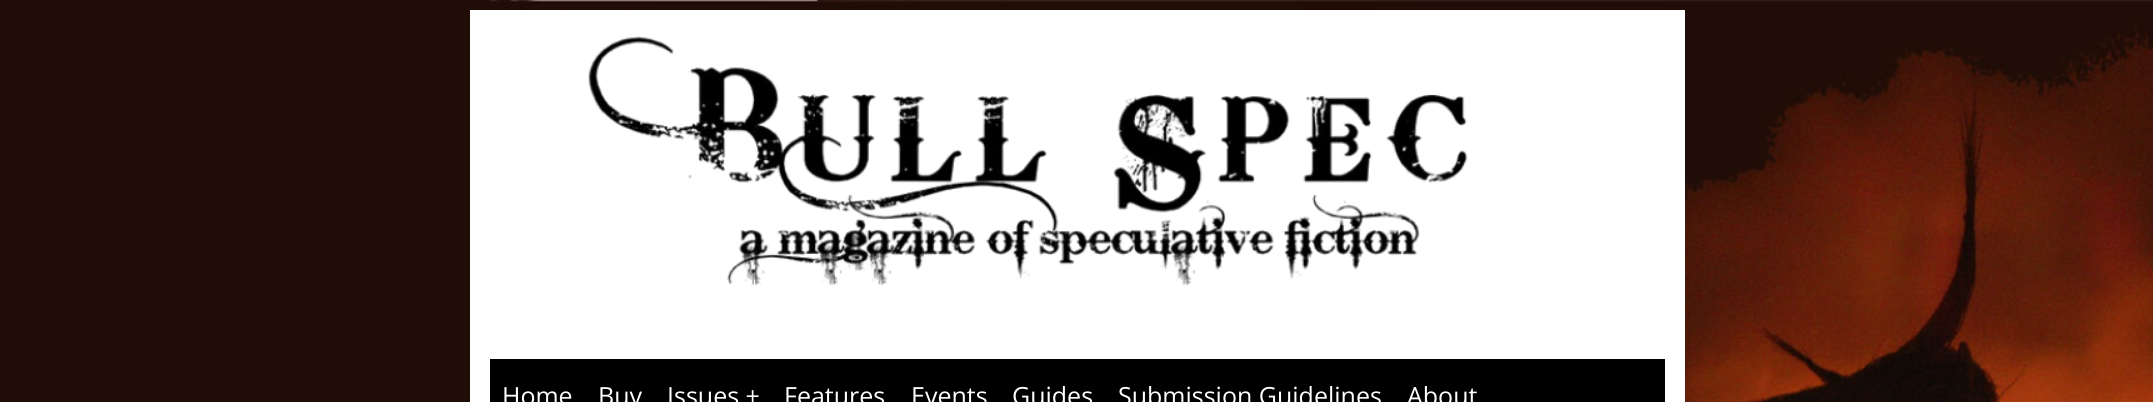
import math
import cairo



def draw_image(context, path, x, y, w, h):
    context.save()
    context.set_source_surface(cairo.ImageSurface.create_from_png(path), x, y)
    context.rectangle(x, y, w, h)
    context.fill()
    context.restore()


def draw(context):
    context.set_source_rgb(1, 1, 1)
    context.paint()
    draw_image(context, "images/1.png", 0, 0, 2153, 402)
    context.set_source_rgb(1, 1, 1)
    context.rectangle(470, 10, 1215, 392)
    context.fill()
    draw_image(context, "images/2.png", 588, 36, 880, 250)
    context.set_source_rgb(0, 0, 0)
    context.rectangle(490, 359, 1175, 43)
    context.fill()
    context.select_font_face("Open Sans")
    context.set_font_size(25)
    context.set_source_rgb(1, 1, 1)
    context.move_to(502, 405)
    context.show_text("Home")
    context.move_to(598, 405)
    context.show_text("Buy")
    context.move_to(667, 405)
    context.show_text("Issues +")
    context.move_to(784, 405)
    context.show_text("Features")
    context.move_to(911, 405)
    context.show_text("Events")
    context.move_to(1012, 405)
    context.show_text("Guides")
    context.move_to(1118, 405)
    context.show_text("Submission Guidelines")
    context.move_to(1407, 405)
    context.show_text("About")


surface = cairo.ImageSurface(cairo.Format.RGB24, 2153, 402)
context = cairo.Context(surface)
options = cairo.FontOptions()
options.set_hint_metrics(cairo.HintMetrics.OFF)
options.set_hint_style(cairo.HintStyle.NONE)
context.set_font_options(options)
context.set_miter_limit(4)
draw(context)
surface.write_to_png("out.png")
